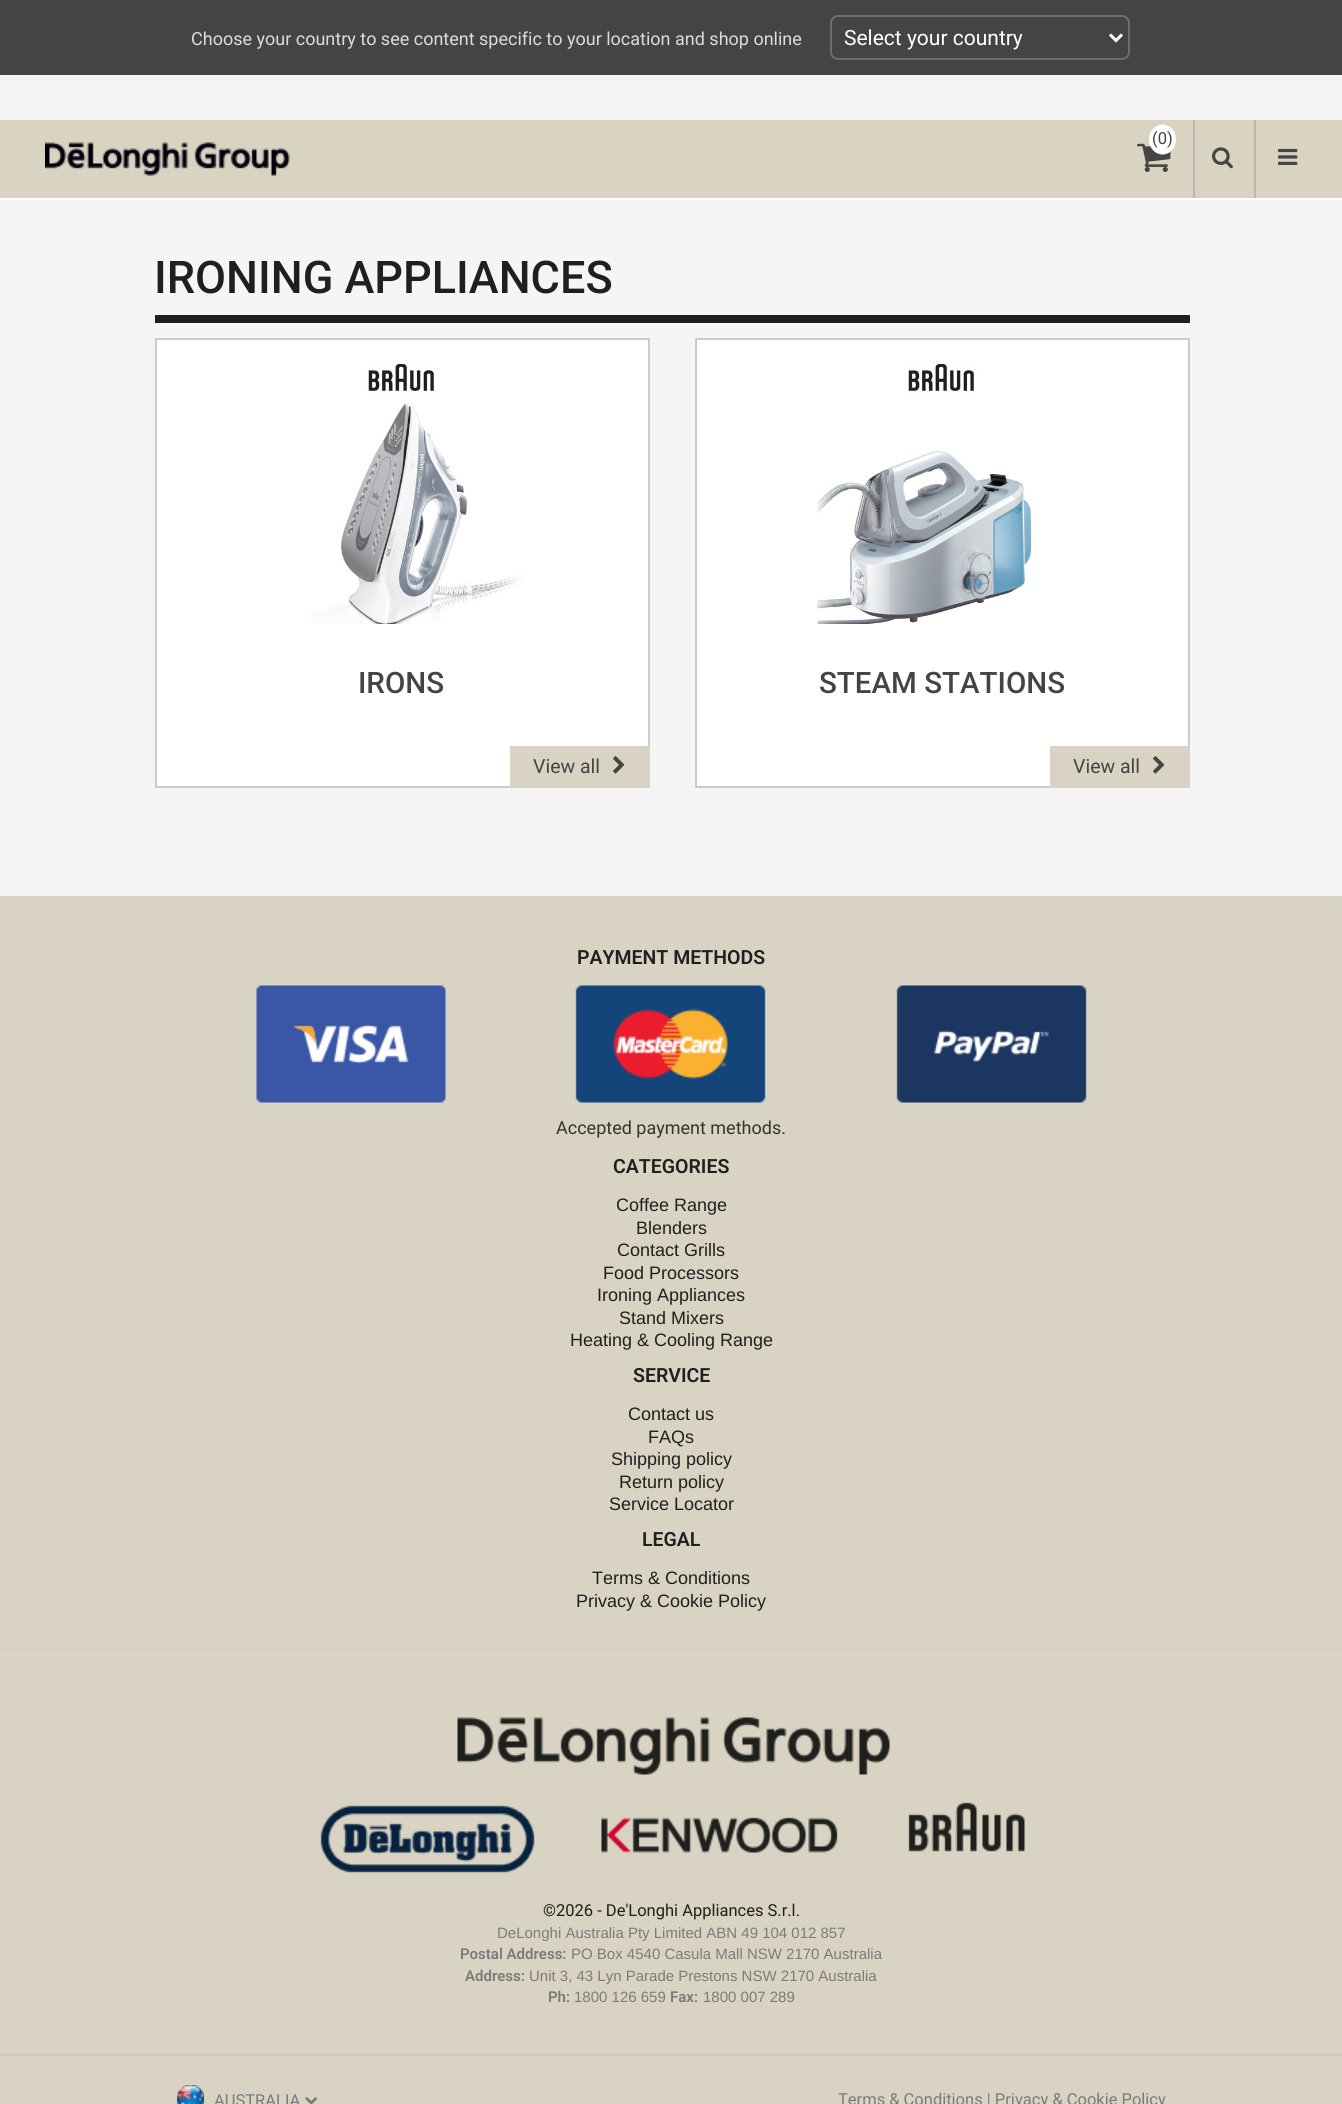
import math
import cairo



def rounded_rect(context, x, y, w, h, r):
    context.new_sub_path()
    for i, (u, v) in enumerate([(x + w - r, y + h - r), (x + r, y + h - r), (x + r, y + r), (x + w - r, y + r)]):
        context.arc(u, v, r, i * math.pi / 2, (i + 1) * math.pi / 2)
    context.close_path()


def draw_image(context, path, x, y, w, h):
    context.save()
    context.set_source_surface(cairo.ImageSurface.create_from_png(path), x, y)
    context.rectangle(x, y, w, h)
    context.fill()
    context.restore()


def draw(context):
    context.set_source_rgb(245 / 255, 245 / 255, 245 / 255)
    context.paint()
    context.set_source_rgb(68 / 255, 68 / 255, 68 / 255)
    context.rectangle(0, 0, 1342, 75)
    context.fill()
    rounded_rect(context, 831, 16, 298, 43, 7)
    context.set_source_rgb(109 / 255, 109 / 255, 109 / 255)
    context.stroke()
    context.new_path()
    context.move_to(1110, 34.5)
    context.line_to(1116, 40.5)
    context.line_to(1122, 34.5)
    context.set_source_rgb(1, 1, 1)
    context.set_line_width(3)
    context.stroke()
    context.set_source_rgb(217 / 255, 211 / 255, 194 / 255)
    context.rectangle(0, 120, 1342, 78)
    context.fill()
    context.set_source_rgb(1, 1, 1)
    context.rectangle(0, 198, 1342, 2)
    context.fill()
    draw_image(context, "images/1.png", 1137, 143, 34, 29)
    context.new_path()
    context.move_to(1162.5, 124.5)
    context.curve_to(1170, 124.5, 1176, 131, 1176, 139.5)
    context.curve_to(1176, 148, 1170, 154.5, 1162.5, 154.5)
    context.curve_to(1155, 154.5, 1149, 148, 1149, 139.5)
    context.curve_to(1149, 131, 1155, 124.5, 1162.5, 124.5)
    context.close_path()
    context.fill()
    context.set_source_rgb(189 / 255, 183 / 255, 171 / 255)
    context.rectangle(1193, 120, 2, 78)
    context.fill()
    draw_image(context, "images/2.png", 1212, 147, 21, 22)
    context.rectangle(1254, 120, 2, 78)
    context.fill()
    draw_image(context, "images/3.png", 1278, 148, 20, 17)
    draw_image(context, "images/4.png", 45, 142, 245, 34)
    context.set_source_rgb(31 / 255, 31 / 255, 31 / 255)
    context.rectangle(155, 315, 1035, 8)
    context.fill()
    context.set_source_rgb(1, 1, 1)
    context.rectangle(156, 339, 493, 448)
    context.fill_preserve()
    context.set_source_rgb(203 / 255, 203 / 255, 203 / 255)
    context.set_line_width(2)
    context.stroke()
    draw_image(context, "images/5.png", 311, 362, 212, 262)
    context.set_source_rgb(217 / 255, 211 / 255, 195 / 255)
    context.rectangle(510, 746, 140, 42)
    context.fill()
    draw_image(context, "images/6.png", 613, 756, 12, 18)
    context.set_source_rgb(1, 1, 1)
    context.rectangle(696, 339, 493, 448)
    context.fill_preserve()
    context.set_source_rgb(203 / 255, 203 / 255, 203 / 255)
    context.stroke()
    draw_image(context, "images/7.png", 817, 362, 216, 262)
    context.set_source_rgb(217 / 255, 211 / 255, 195 / 255)
    context.rectangle(1050, 746, 140, 42)
    context.fill()
    draw_image(context, "images/6.png", 1153, 756, 12, 18)
    context.rectangle(0, 896, 1342, 753)
    context.fill()
    context.set_source_rgb(207 / 255, 201 / 255, 185 / 255)
    context.rectangle(0, 1649, 1342, 1)
    context.fill()
    draw_image(context, "images/8.png", 256, 985, 190, 118)
    draw_image(context, "images/9.png", 575, 985, 191, 118)
    draw_image(context, "images/10.png", 896, 985, 191, 118)
    context.set_source_rgb(217 / 255, 211 / 255, 195 / 255)
    context.rectangle(0, 1650, 1342, 404)
    context.fill()
    draw_image(context, "images/11.png", 320, 1717, 705, 156)
    context.rectangle(0, 2056, 1342, 48)
    context.fill()
    context.set_source_rgb(207 / 255, 201 / 255, 185 / 255)
    context.rectangle(0, 2054, 1342, 2)
    context.fill()
    draw_image(context, "images/12.png", 177, 2085, 27, 19)
    draw_image(context, "images/13.png", 305, 2097, 13, 7)
    context.select_font_face("Roboto")
    context.set_font_size(18)
    context.set_source_rgb(220 / 255, 220 / 255, 220 / 255)
    context.move_to(191, 45)
    context.show_text("Choose your country to see content specific to your location and shop online")
    context.set_font_size(21)
    context.set_source_rgb(1, 1, 1)
    context.move_to(844, 45)
    context.show_text("Select your country")
    context.set_font_size(16.5)
    context.set_source_rgb(68 / 255, 68 / 255, 68 / 255)
    context.move_to(1152, 144)
    context.show_text("(0)")
    context.select_font_face("Roboto Medium")
    context.set_font_size(45)
    context.set_source_rgb(31 / 255, 31 / 255, 31 / 255)
    context.move_to(154, 293)
    context.show_text("IRONING APPLIANCES")
    context.set_font_size(29.5)
    context.set_source_rgb(68 / 255, 68 / 255, 68 / 255)
    context.move_to(358, 693)
    context.show_text("IRONS")
    context.select_font_face("Roboto")
    context.set_font_size(19.5)
    context.move_to(533, 773)
    context.show_text("View all")
    context.select_font_face("Roboto Medium")
    context.set_font_size(29.5)
    context.move_to(819, 693)
    context.show_text("STEAM STATIONS")
    context.select_font_face("Roboto")
    context.set_font_size(19.5)
    context.move_to(1073, 773)
    context.show_text("View all")
    context.select_font_face("Roboto SemiBold")
    context.set_source_rgb(31 / 255, 31 / 255, 31 / 255)
    context.move_to(577, 964)
    context.show_text("PAYMENT METHODS")
    context.select_font_face("Roboto")
    context.set_font_size(18)
    context.set_source_rgb(51 / 255, 51 / 255, 51 / 255)
    context.move_to(556, 1134)
    context.show_text("Accepted payment methods.")
    context.select_font_face("Roboto SemiBold")
    context.set_font_size(19.5)
    context.set_source_rgb(31 / 255, 31 / 255, 31 / 255)
    context.move_to(613, 1173)
    context.show_text("CATEGORIES")
    context.select_font_face("Liberation Sans")
    context.set_font_size(18)
    context.move_to(616, 1211)
    context.show_text("Coffee Range")
    context.move_to(636, 1234)
    context.show_text("Blenders")
    context.move_to(617, 1256)
    context.show_text("Contact Grills")
    context.move_to(603, 1279)
    context.show_text("Food Processors")
    context.move_to(597, 1301)
    context.show_text("Ironing Appliances")
    context.move_to(619, 1324)
    context.show_text("Stand Mixers")
    context.move_to(570, 1346)
    context.show_text("Heating & Cooling Range")
    context.select_font_face("Roboto SemiBold")
    context.set_font_size(19.5)
    context.move_to(633, 1382)
    context.show_text("SERVICE")
    context.select_font_face("Liberation Sans")
    context.set_font_size(18)
    context.move_to(628, 1420)
    context.show_text("Contact us")
    context.move_to(648, 1443)
    context.show_text("FAQs")
    context.move_to(611, 1465)
    context.show_text("Shipping policy")
    context.move_to(619, 1488)
    context.show_text("Return policy")
    context.move_to(609, 1510)
    context.show_text("Service Locator")
    context.select_font_face("Roboto SemiBold")
    context.set_font_size(19.5)
    context.move_to(642, 1546)
    context.show_text("LEGAL")
    context.select_font_face("Liberation Sans")
    context.set_font_size(18)
    context.move_to(592, 1584)
    context.show_text("Terms & Conditions")
    context.move_to(576, 1607)
    context.show_text("Privacy & Cookie Policy")
    context.select_font_face("Roboto")
    context.set_font_size(16.5)
    context.move_to(543, 1916)
    context.show_text("©2026 - De'Longhi Appliances S.r.l.")
    context.select_font_face("Liberation Sans")
    context.set_font_size(15)
    context.set_source_rgb(123 / 255, 123 / 255, 123 / 255)
    context.move_to(497, 1938)
    context.show_text("DeLonghi Australia Pty Limited ABN 49 104 012 857")
    context.select_font_face("Roboto SemiBold")
    context.move_to(460, 1959)
    context.show_text("Postal Address:")
    context.select_font_face("Liberation Sans")
    context.move_to(571, 1959)
    context.show_text("PO Box 4540 Casula Mall NSW 2170 Australia")
    context.select_font_face("Roboto SemiBold")
    context.move_to(465, 1981)
    context.show_text("Address:")
    context.select_font_face("Liberation Sans")
    context.move_to(529, 1981)
    context.show_text("Unit 3, 43 Lyn Parade Prestons NSW 2170 Australia")
    context.select_font_face("Roboto SemiBold")
    context.move_to(548, 2002)
    context.show_text("Ph:")
    context.select_font_face("Liberation Sans")
    context.move_to(574, 2002)
    context.show_text("1800 126 659")
    context.select_font_face("Roboto SemiBold")
    context.move_to(670, 2002)
    context.show_text("Fax:")
    context.select_font_face("Liberation Sans")
    context.move_to(703, 2002)
    context.show_text("1800 007 289")
    context.select_font_face("Roboto")
    context.set_font_size(16.5)
    context.move_to(214, 2106)
    context.show_text("AUSTRALIA")
    context.move_to(838, 2105)
    context.show_text("Terms & Conditions | Privacy & Cookie Policy")


surface = cairo.ImageSurface(cairo.Format.RGB24, 1342, 2104)
context = cairo.Context(surface)
options = cairo.FontOptions()
options.set_hint_metrics(cairo.HintMetrics.OFF)
options.set_hint_style(cairo.HintStyle.NONE)
context.set_font_options(options)
context.set_miter_limit(4)
draw(context)
surface.write_to_png("out.png")
